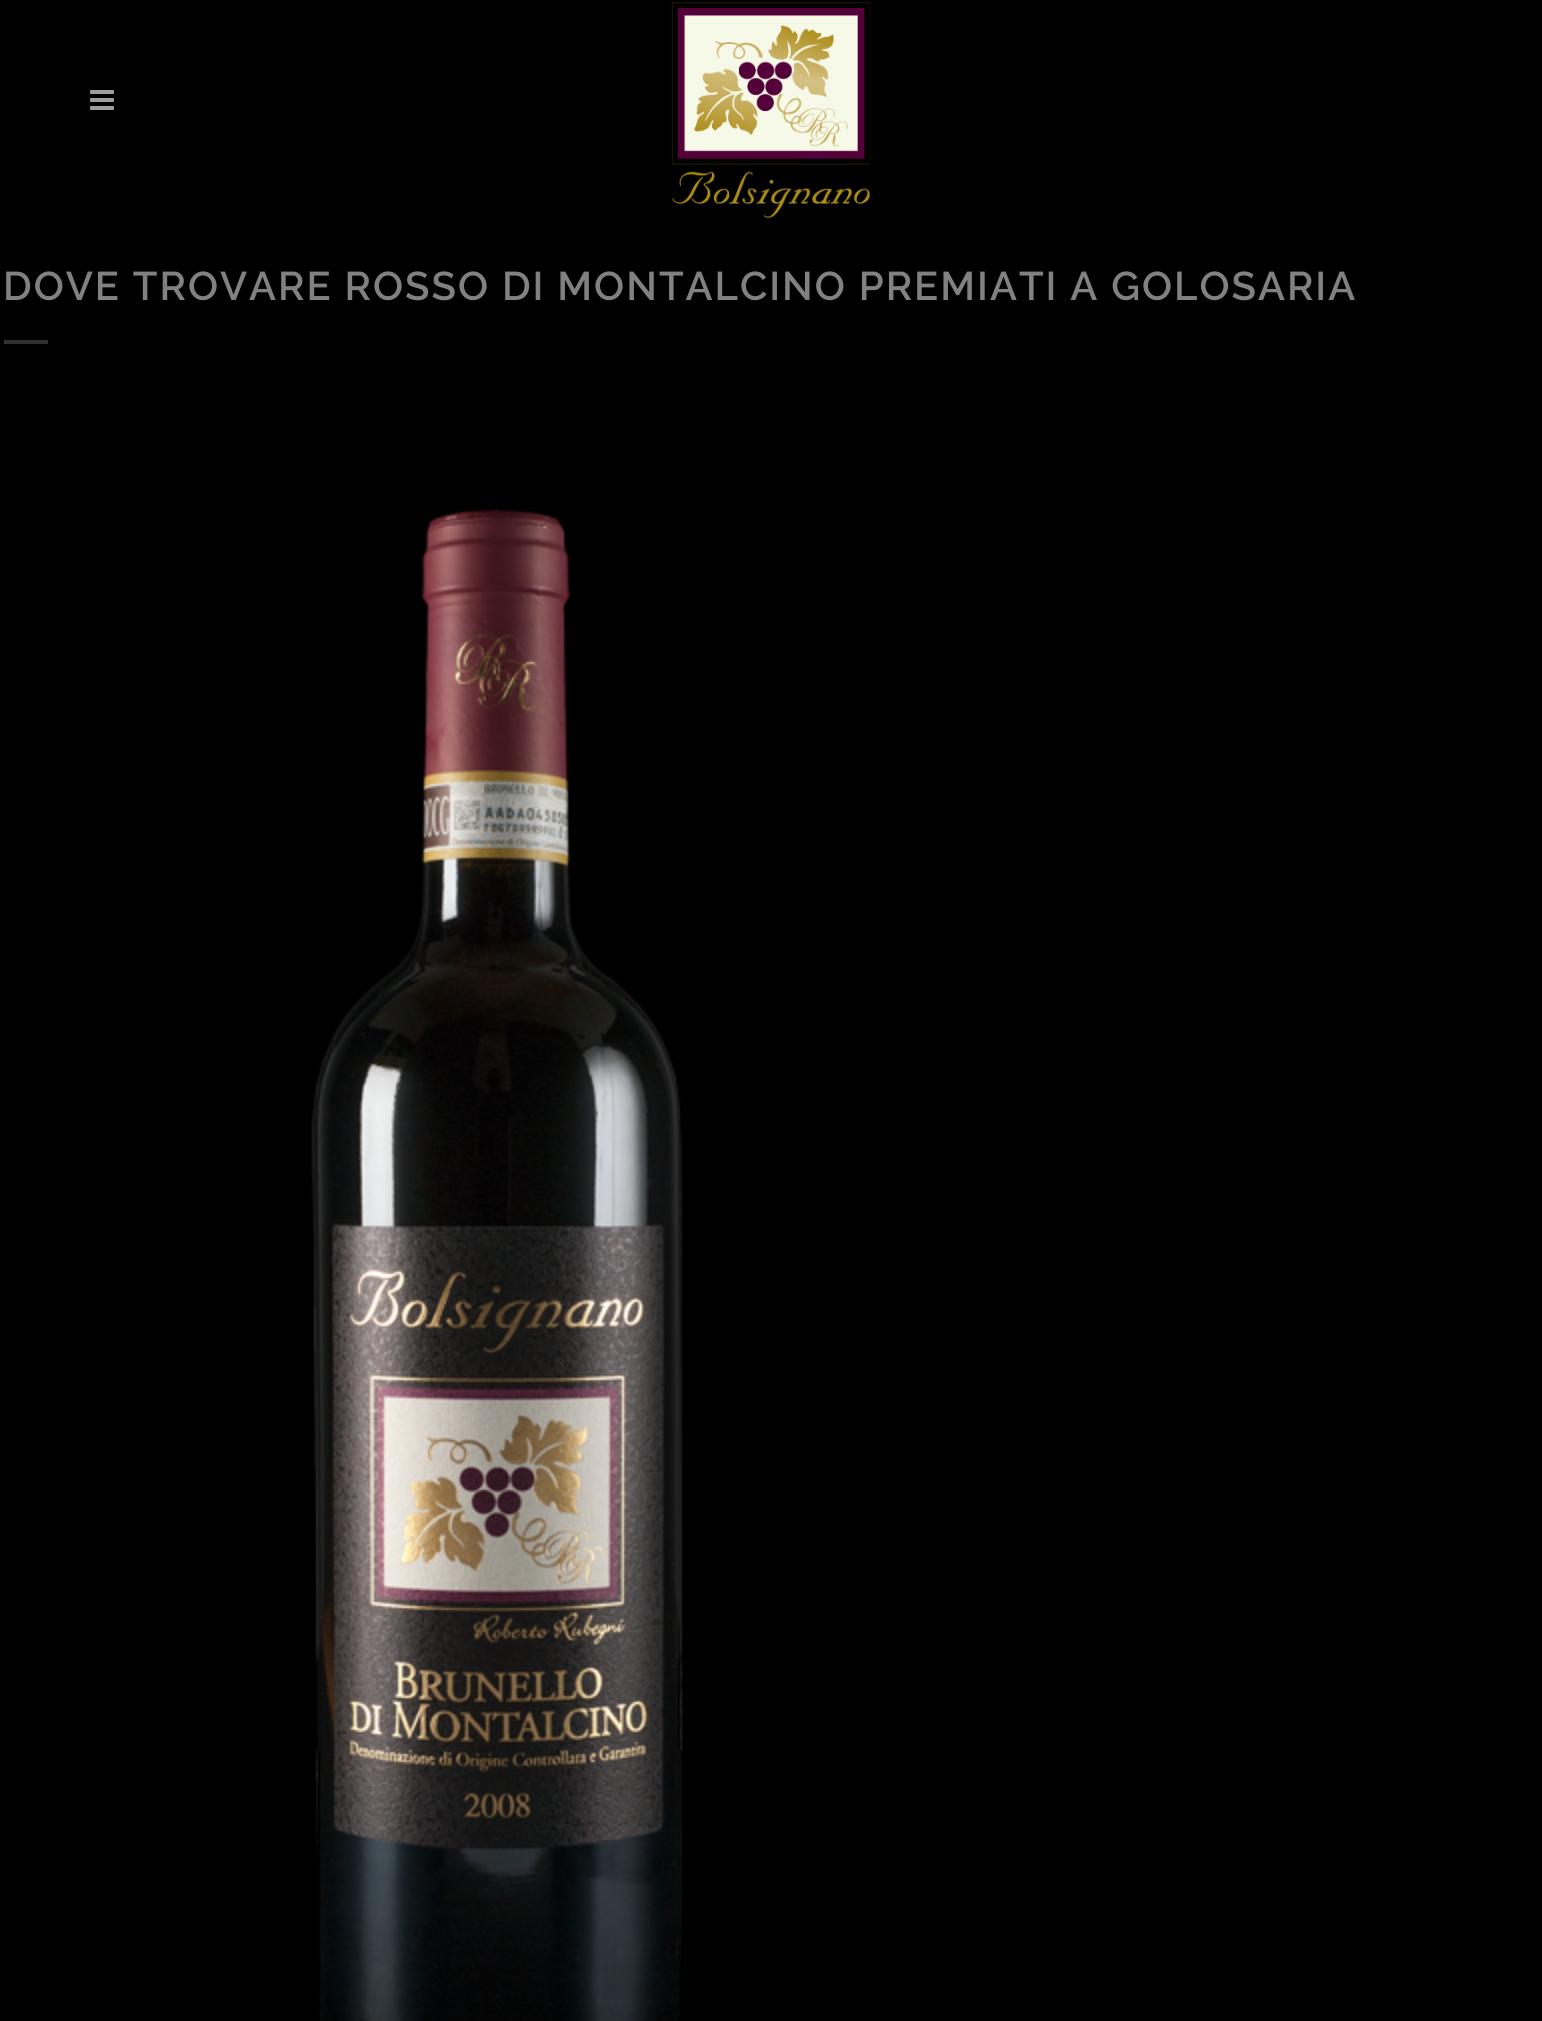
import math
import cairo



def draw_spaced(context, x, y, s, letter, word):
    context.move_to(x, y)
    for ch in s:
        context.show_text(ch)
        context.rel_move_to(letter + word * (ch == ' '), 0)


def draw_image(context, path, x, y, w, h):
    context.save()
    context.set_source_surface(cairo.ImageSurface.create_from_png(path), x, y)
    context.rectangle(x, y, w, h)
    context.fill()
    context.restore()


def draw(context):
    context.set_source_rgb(0, 0, 0)
    context.paint()
    draw_image(context, "images/1.png", 90, 90, 24, 20)
    draw_image(context, "images/2.png", 671, 2, 200, 217)
    context.set_source_rgb(48 / 255, 48 / 255, 48 / 255)
    context.rectangle(4, 340, 44, 4)
    context.fill()
    draw_image(context, "images/3.png", 311, 508, 372, 1513)
    context.select_font_face("Raleway SemiBold")
    context.set_font_size(40)
    context.set_source_rgb(129 / 255, 129 / 255, 129 / 255)
    draw_spaced(context, 3, 300, "DOVE TROVARE ROSSO DI MONTALCINO PREMIATI A GOLOSARIA", 2, 0)


surface = cairo.ImageSurface(cairo.Format.RGB24, 1542, 2021)
context = cairo.Context(surface)
options = cairo.FontOptions()
options.set_hint_metrics(cairo.HintMetrics.OFF)
options.set_hint_style(cairo.HintStyle.NONE)
context.set_font_options(options)
context.set_miter_limit(4)
draw(context)
surface.write_to_png("out.png")
